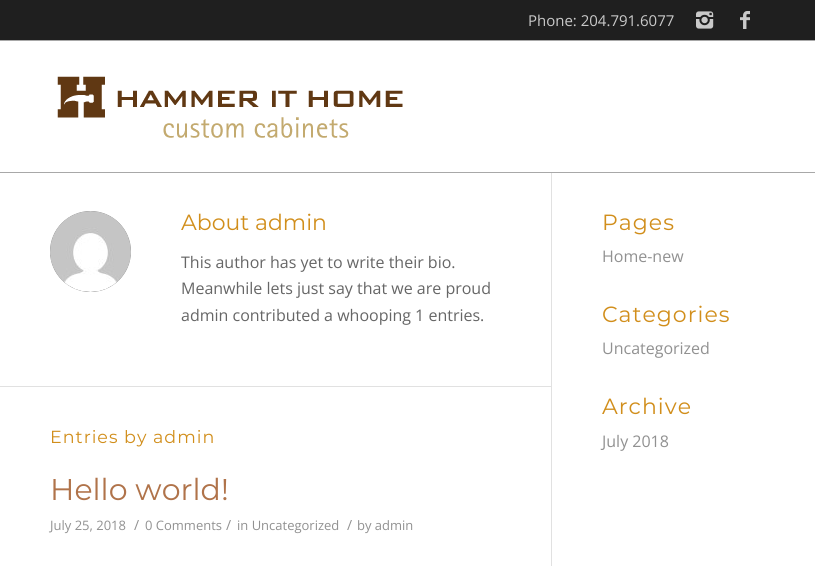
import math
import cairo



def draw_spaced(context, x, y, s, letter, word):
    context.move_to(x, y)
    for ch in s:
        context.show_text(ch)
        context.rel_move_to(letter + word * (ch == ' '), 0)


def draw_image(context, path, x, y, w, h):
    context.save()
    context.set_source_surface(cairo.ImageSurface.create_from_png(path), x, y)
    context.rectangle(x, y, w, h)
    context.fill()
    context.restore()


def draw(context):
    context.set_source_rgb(1, 1, 1)
    context.paint()
    context.set_source_rgb(31 / 255, 31 / 255, 31 / 255)
    context.rectangle(0, 0, 815, 40)
    context.fill()
    context.set_source_rgb(168 / 255, 168 / 255, 168 / 255)
    context.rectangle(0, 40, 815, 1)
    context.fill()
    draw_image(context, "images/1.png", 696, 11, 18, 18)
    draw_image(context, "images/2.png", 740, 11, 10, 18)
    context.rectangle(0, 172, 815, 1)
    context.fill()
    draw_image(context, "images/3.png", 57, 76, 346, 62)
    context.set_source_rgb(225 / 255, 225 / 255, 225 / 255)
    context.rectangle(551, 173, 1, 393)
    context.fill()
    context.set_source_rgb(145 / 255, 145 / 255, 145 / 255)
    context.arc(90.5, 251.5, 40.5, 0, 2 * math.pi)
    context.fill()
    draw_image(context, "images/4.png", 50, 211, 81, 81)
    context.set_source_rgb(225 / 255, 225 / 255, 225 / 255)
    context.rectangle(0, 386, 551, 1)
    context.fill()
    context.select_font_face("Open Sans")
    context.set_font_size(15)
    context.set_source_rgb(201 / 255, 201 / 255, 201 / 255)
    context.move_to(528, 26)
    context.show_text("Phone: 204.791.6077")
    context.select_font_face("Montserrat Thin")
    context.set_font_size(22)
    context.set_source_rgb(209 / 255, 142 / 255, 27 / 255)
    context.move_to(181, 230)
    context.show_text("About admin")
    context.select_font_face("Open Sans")
    context.set_font_size(16)
    context.set_source_rgb(102 / 255, 102 / 255, 102 / 255)
    context.move_to(181, 268)
    context.show_text("This author has yet to write their bio.")
    context.move_to(181, 294)
    context.show_text("Meanwhile lets just say that we are proud")
    context.move_to(181, 321)
    context.show_text("admin contributed a whooping 1 entries.")
    context.select_font_face("Montserrat Thin")
    context.set_font_size(17.5)
    context.set_source_rgb(209 / 255, 142 / 255, 27 / 255)
    draw_spaced(context, 50, 443, "Entries by admin", 1, 0)
    context.set_font_size(30)
    context.set_source_rgb(176 / 255, 115 / 255, 74 / 255)
    context.move_to(50, 500)
    context.show_text("Hello world!")
    context.select_font_face("Open Sans")
    context.set_font_size(13)
    context.set_source_rgb(145 / 255, 145 / 255, 145 / 255)
    context.move_to(50, 530)
    context.show_text("July 25, 2018")
    context.set_font_size(14)
    context.move_to(134, 530)
    context.show_text("/")
    context.set_font_size(13)
    context.move_to(145, 530)
    context.show_text("0 Comments")
    context.set_font_size(14)
    context.move_to(226, 530)
    context.show_text("/")
    context.set_font_size(13)
    context.move_to(237, 530)
    context.show_text("in Uncategorized")
    context.set_font_size(14)
    context.move_to(347, 530)
    context.show_text("/")
    context.set_font_size(13)
    context.move_to(357, 530)
    context.show_text("by admin")
    context.select_font_face("Montserrat Thin")
    context.set_font_size(22)
    context.set_source_rgb(209 / 255, 142 / 255, 27 / 255)
    draw_spaced(context, 602, 230, "Pages", 1, 0)
    context.select_font_face("Open Sans")
    context.set_font_size(16)
    context.set_source_rgb(145 / 255, 145 / 255, 145 / 255)
    context.move_to(602, 262)
    context.show_text("Home-new")
    context.select_font_face("Montserrat Thin")
    context.set_font_size(22)
    context.set_source_rgb(209 / 255, 142 / 255, 27 / 255)
    draw_spaced(context, 602, 322, "Categories", 1, 0)
    context.select_font_face("Open Sans")
    context.set_font_size(16)
    context.set_source_rgb(145 / 255, 145 / 255, 145 / 255)
    context.move_to(602, 354)
    context.show_text("Uncategorized")
    context.select_font_face("Montserrat Thin")
    context.set_font_size(22)
    context.set_source_rgb(209 / 255, 142 / 255, 27 / 255)
    draw_spaced(context, 602, 414, "Archive", 1, 0)
    context.select_font_face("Open Sans")
    context.set_font_size(16)
    context.set_source_rgb(145 / 255, 145 / 255, 145 / 255)
    context.move_to(602, 447)
    context.show_text("July 2018")


surface = cairo.ImageSurface(cairo.Format.RGB24, 815, 566)
context = cairo.Context(surface)
options = cairo.FontOptions()
options.set_hint_metrics(cairo.HintMetrics.OFF)
options.set_hint_style(cairo.HintStyle.NONE)
context.set_font_options(options)
context.set_miter_limit(4)
draw(context)
surface.write_to_png("out.png")
